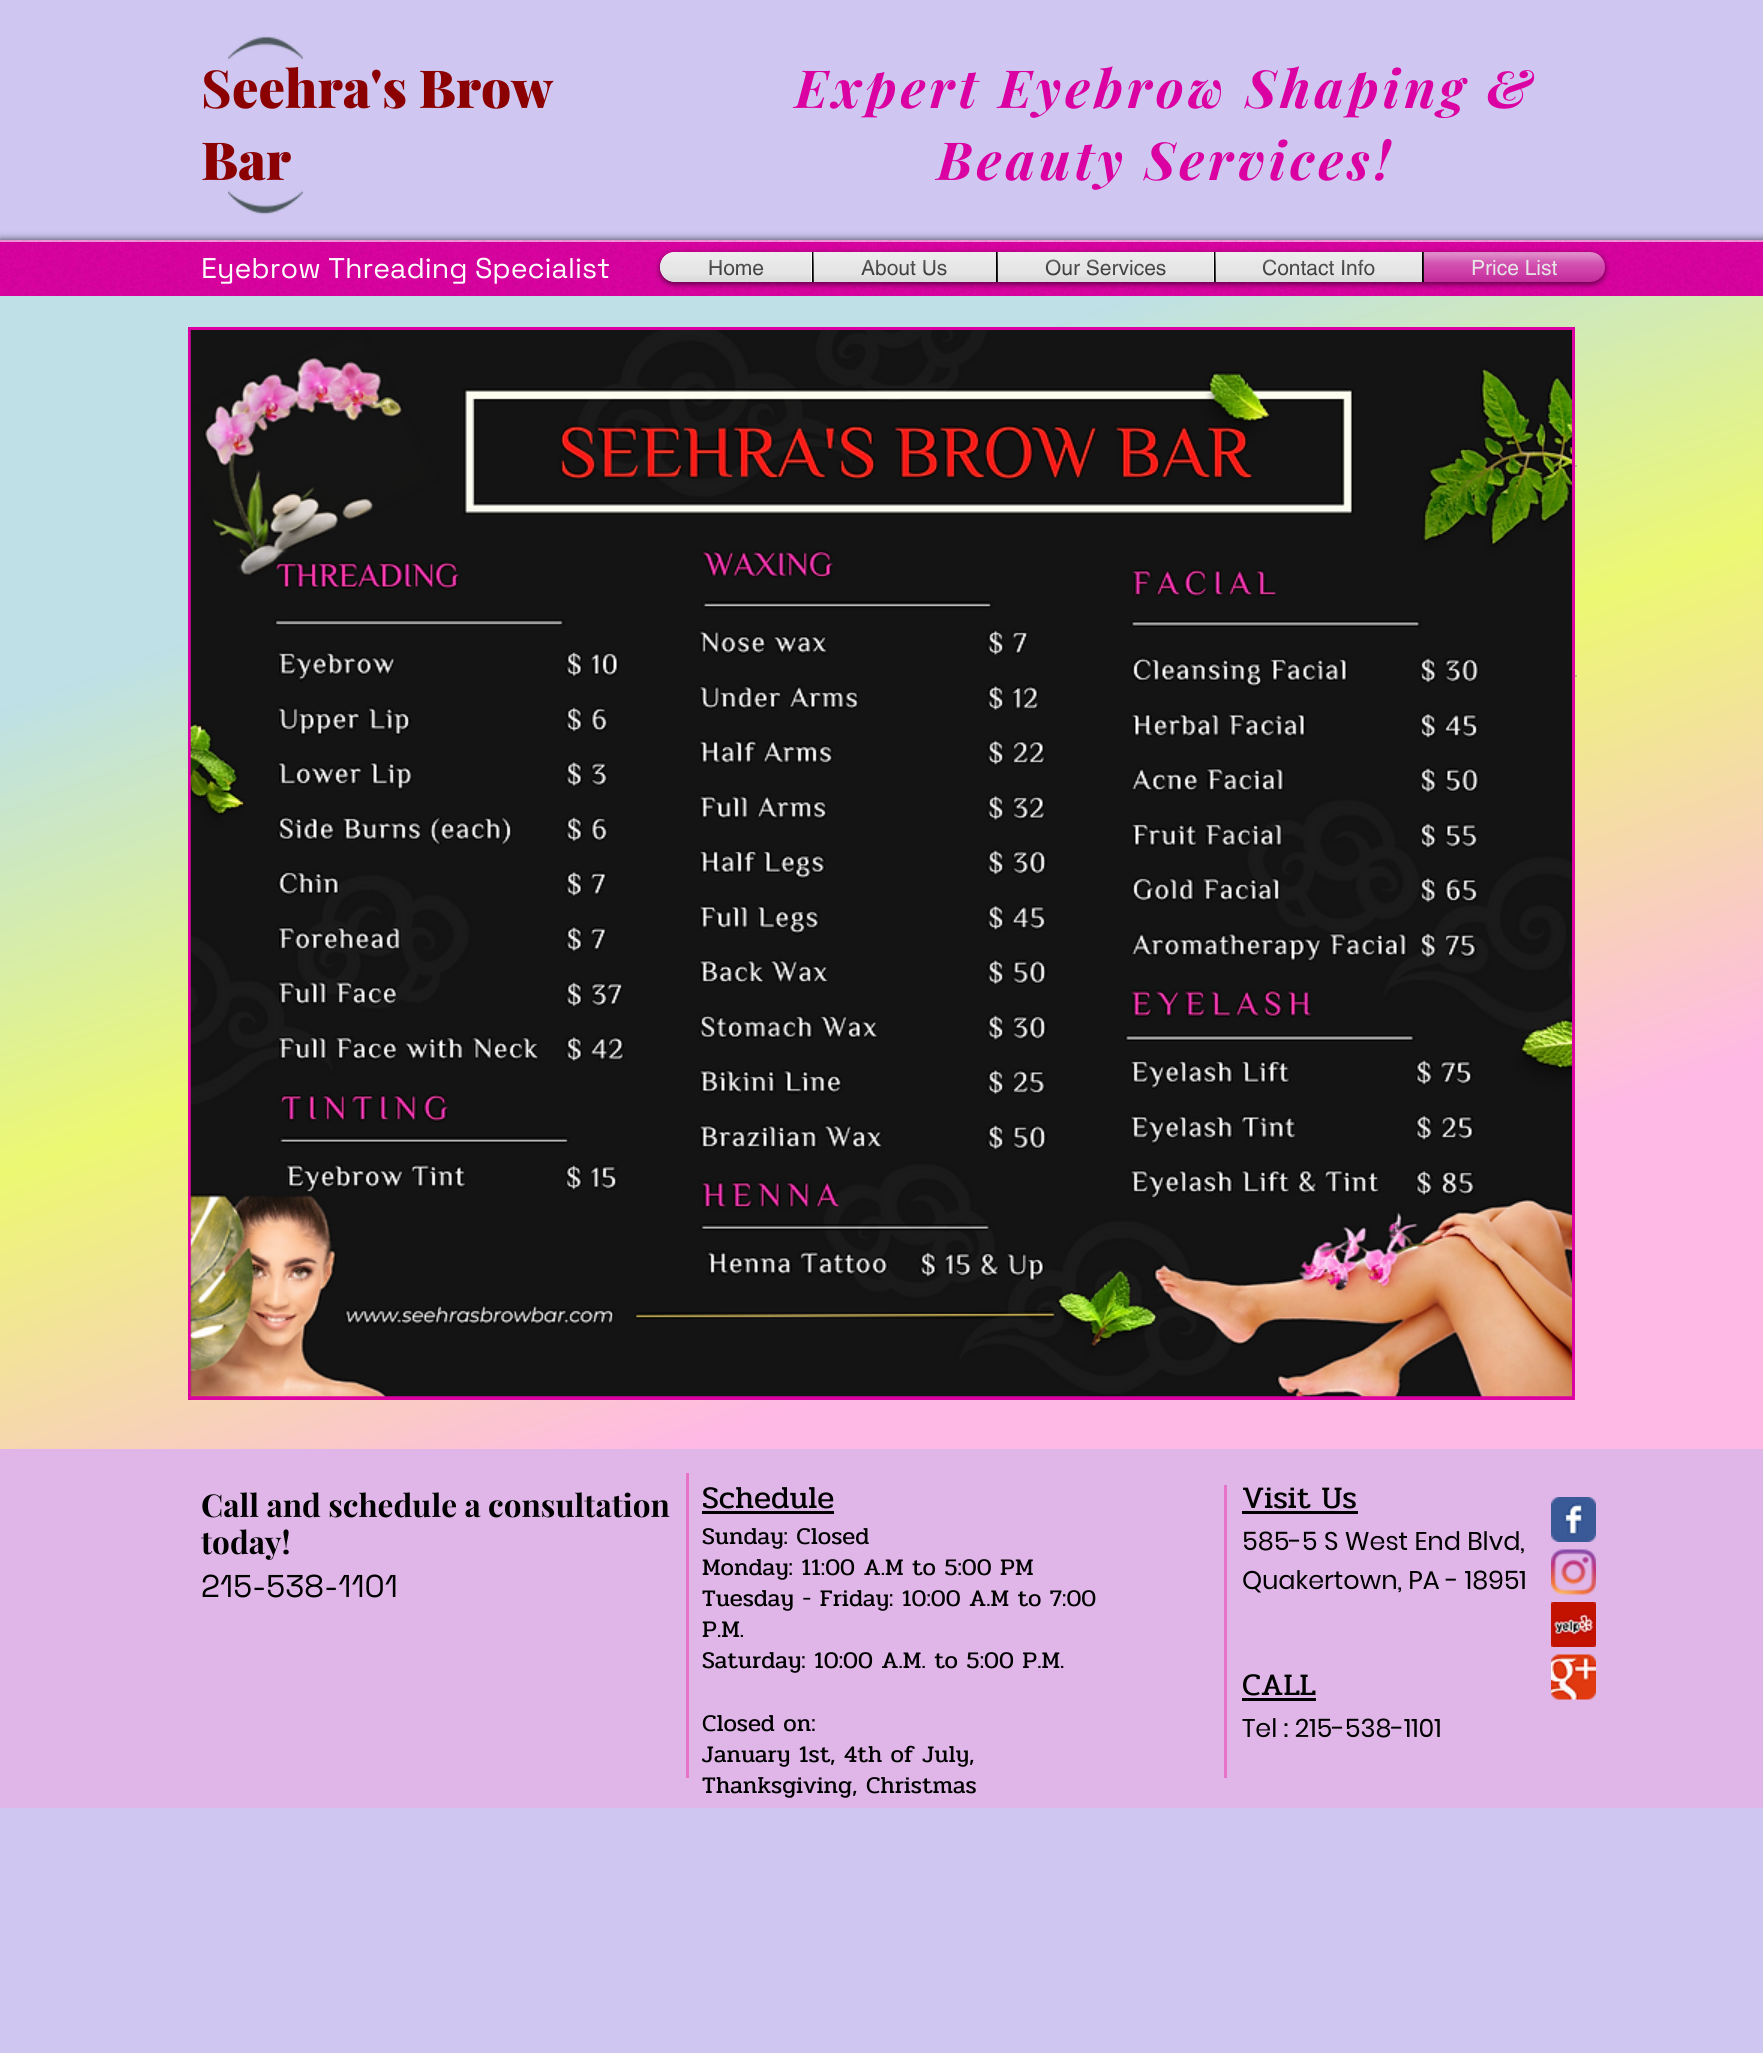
import math
import cairo



def draw_spaced(context, x, y, s, letter, word):
    context.move_to(x, y)
    for ch in s:
        context.show_text(ch)
        context.rel_move_to(letter + word * (ch == ' '), 0)


def rounded_rect(context, x, y, w, h, r):
    context.new_sub_path()
    for i, (u, v) in enumerate([(x + w - r, y + h - r), (x + r, y + h - r), (x + r, y + r), (x + w - r, y + r)]):
        context.arc(u, v, r, i * math.pi / 2, (i + 1) * math.pi / 2)
    context.close_path()


def draw_shadow(context, x, y, w, h, r, blur, alpha):
    context.push_group_with_content(cairo.Content.ALPHA)
    context.set_operator(cairo.Operator.SOURCE)
    for i in range(15, -16, -2):
        e = blur * i / 6
        if min(w, h) + 2 * e > 0:
            context.set_source_rgba(0, 0, 0, alpha * math.erfc((i - 1) / 8.5) / 2)
            rounded_rect(context, x - e, y - e, w + 2 * e, h + 2 * e, max(0, min(r + e + blur * .6, min(w, h) / 2 + e)))
            context.fill()
    context.mask(context.pop_group())


def draw_image(context, path, x, y, w, h):
    context.save()
    context.set_source_surface(cairo.ImageSurface.create_from_png(path), x, y)
    context.rectangle(x, y, w, h)
    context.fill()
    context.restore()


def draw(context):
    context.set_source_rgb(207 / 255, 199 / 255, 242 / 255)
    context.paint()
    draw_image(context, "images/1.png", 228, 36, 75, 24)
    draw_image(context, "images/2.png", 228, 190, 75, 25)
    context.set_source_rgb(219 / 255, 0, 161 / 255)
    context.rectangle(0, 242, 1763, 54)
    context.fill()
    context.set_source_rgb(240 / 255, 151 / 255, 217 / 255)
    context.rectangle(0, 240, 1763, 2)
    context.fill()
    context.save()
    context.set_fill_rule(cairo.FillRule.EVEN_ODD)
    context.new_path()
    context.move_to(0, 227)
    context.line_to(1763, 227)
    context.line_to(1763, 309)
    context.line_to(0, 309)
    context.close_path()
    context.move_to(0, 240)
    context.line_to(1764, 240)
    context.line_to(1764, 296)
    context.line_to(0, 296)
    context.close_path()
    context.clip()
    context.set_source_rgb(0, 0, 0)
    draw_shadow(context, 0, 240, 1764, 56, 0, 4, 0.7)
    context.restore()
    draw_image(context, "images/3.png", 0, 240, 1763, 56)
    context.set_source_rgb(0, 0, 0)
    draw_shadow(context, 660, 254, 945, 30, 15, 3, 0.6)
    draw_image(context, "images/4.png", 660, 252, 945, 30)
    draw_image(context, "images/5.png", 660, 252, 945, 30)
    context.set_source_rgb(1, 1, 1)
    context.new_path()
    context.move_to(675, 252)
    context.line_to(812, 252)
    context.line_to(812, 282)
    context.line_to(675, 282)
    context.curve_to(666.5, 282, 660, 275.5, 660, 267)
    context.curve_to(660, 258.5, 666.5, 252, 675, 252)
    context.close_path()
    context.fill()
    context.rectangle(814, 252, 182, 30)
    context.fill()
    context.set_source_rgb(0, 0, 0)
    context.rectangle(812, 252, 2, 30)
    context.fill()
    context.set_source_rgb(1, 1, 1)
    context.rectangle(998, 252, 216, 30)
    context.fill()
    context.set_source_rgb(0, 0, 0)
    context.rectangle(996, 252, 2, 30)
    context.fill()
    context.set_source_rgb(1, 1, 1)
    context.rectangle(1216, 252, 206, 30)
    context.fill()
    context.set_source_rgb(0, 0, 0)
    context.rectangle(1214, 252, 2, 30)
    context.fill()
    context.set_source_rgb(219 / 255, 0, 161 / 255)
    context.new_path()
    context.move_to(1422, 252)
    context.line_to(1590, 252)
    context.curve_to(1598.5, 252, 1605, 258.5, 1605, 267)
    context.curve_to(1605, 275.5, 1598.5, 282, 1590, 282)
    context.line_to(1422, 282)
    context.close_path()
    context.fill()
    context.set_source_rgb(0, 0, 0)
    context.rectangle(1422, 252, 2, 30)
    context.fill()
    gradient = cairo.LinearGradient(1171, 1665, 593, 79)
    gradient.add_color_stop_rgba(0.22, 1, 185 / 255, 229 / 255, 1)
    gradient.add_color_stop_rgba(0.51, 236 / 255, 248 / 255, 114 / 255, 1)
    gradient.add_color_stop_rgba(0.77, 190 / 255, 224 / 255, 230 / 255, 1)
    context.set_source(gradient)
    context.rectangle(0, 296, 1763, 1153)
    context.fill()
    gradient = cairo.LinearGradient(1171, 1665, 593, 79)
    gradient.add_color_stop_rgba(0.22, 200 / 255, 158 / 255, 184 / 255, 1)
    gradient.add_color_stop_rgba(0.51, 188 / 255, 196 / 255, 115 / 255, 1)
    gradient.add_color_stop_rgba(0.77, 161 / 255, 181 / 255, 185 / 255, 1)
    context.set_source(gradient)
    context.rectangle(1575, 675, 2, 2)
    context.fill()
    context.rectangle(1575, 465, 2, 2)
    context.fill()
    context.set_source_rgb(219 / 255, 0, 161 / 255)
    context.rectangle(188, 327, 1387, 1073)
    context.fill()
    draw_image(context, "images/16.png", 190, 330, 1382, 1067)
    context.set_source_rgb(224 / 255, 182 / 255, 232 / 255)
    context.rectangle(0, 1449, 1763, 359)
    context.fill()
    context.set_source_rgb(231 / 255, 115 / 255, 200 / 255)
    context.rectangle(686, 1473, 3, 305)
    context.fill()
    context.set_source_rgb(0, 0, 0)
    context.rectangle(702, 1511, 132, 3)
    context.fill()
    context.set_source_rgb(231 / 255, 115 / 255, 200 / 255)
    context.rectangle(1224, 1485, 3, 293)
    context.fill()
    context.set_source_rgb(0, 0, 0)
    context.rectangle(1242, 1511, 116, 3)
    context.fill()
    draw_image(context, "images/17.png", 1551, 1497, 45, 45)
    draw_image(context, "images/18.png", 1551, 1549, 45, 46)
    draw_image(context, "images/19.png", 1551, 1602, 45, 45)
    draw_image(context, "images/20.png", 1551, 1654, 45, 46)
    context.rectangle(1242, 1698, 74, 3)
    context.fill()
    context.select_font_face("Playfair Display", cairo.FontSlant.NORMAL, cairo.FontWeight.BOLD)
    context.set_font_size(52.5)
    context.set_source_rgb(139 / 255, 0, 0)
    context.move_to(201, 108)
    context.show_text("S")
    context.select_font_face("Playfair Display Black")
    context.move_to(232, 108)
    context.show_text("eehra's Brow")
    context.move_to(201, 180)
    context.show_text("Bar")
    context.select_font_face("Playfair Display", cairo.FontSlant.ITALIC, cairo.FontWeight.BOLD)
    context.set_source_rgb(219 / 255, 0, 161 / 255)
    draw_spaced(context, 795, 108, "Expert Eyebrow Shaping &", 4.2, 0)
    draw_spaced(context, 937, 180, "Beauty Services!", 4.2, 0)
    context.select_font_face("Space Grotesk")
    context.set_font_size(28.5)
    context.set_source_rgb(1, 1, 1)
    context.move_to(201, 278)
    context.show_text("Eyebrow Threading Specialist")
    context.select_font_face("helvetica")
    context.set_font_size(21)
    context.set_source_rgb(0, 0, 0)
    context.move_to(708, 275)
    context.show_text("Home")
    draw_image(context, "images/6.png", 660, 252, 103, 24)
    draw_image(context, "images/7.png", 660, 252, 152, 30)
    context.move_to(861, 275)
    context.show_text("About Us")
    draw_image(context, "images/8.png", 813, 252, 134, 30)
    draw_image(context, "images/9.png", 813, 252, 183, 30)
    context.move_to(1045, 275)
    context.show_text("Our Services")
    draw_image(context, "images/10.png", 997, 252, 169, 30)
    draw_image(context, "images/11.png", 998, 252, 216, 30)
    context.move_to(1262, 275)
    context.show_text("Contact Info")
    draw_image(context, "images/12.png", 1215, 252, 160, 30)
    draw_image(context, "images/13.png", 1215, 252, 207, 30)
    context.set_source_rgb(1, 1, 1)
    context.move_to(1471, 275)
    context.show_text("Price List")
    draw_image(context, "images/14.png", 1423, 252, 182, 30)
    draw_image(context, "images/15.png", 1424, 252, 181, 30)
    context.select_font_face("Playfair Display", cairo.FontSlant.NORMAL, cairo.FontWeight.BOLD)
    context.set_font_size(31.5)
    context.set_source_rgb(0, 0, 0)
    context.move_to(201, 1517)
    context.show_text("Call and schedule a consultation")
    context.move_to(201, 1554)
    context.show_text("today!")
    context.select_font_face("Space Grotesk")
    context.move_to(201, 1597)
    context.show_text("215-538-1101")
    context.select_font_face("Pridi")
    context.move_to(702, 1508)
    context.show_text("Schedule")
    context.set_font_size(24)
    context.move_to(702, 1544)
    context.show_text("Sunday: Closed")
    context.move_to(702, 1575)
    context.show_text("Monday: 11:00 A.M to 5:00 PM")
    context.move_to(702, 1606)
    context.show_text("Tuesday - Friday: 10:00 A.M to 7:00")
    context.move_to(702, 1637)
    context.show_text("P.M.")
    context.move_to(702, 1668)
    context.show_text("Saturday: 10:00 A.M. to 5:00 P.M.")
    context.move_to(702, 1731)
    context.show_text("Closed on:")
    context.move_to(702, 1762)
    context.show_text("January 1st, 4th of July,")
    context.move_to(702, 1793)
    context.show_text("Thanksgiving, Christmas")
    context.set_font_size(31.5)
    context.move_to(1242, 1508)
    context.show_text("Visit Us")
    context.select_font_face("Poppins")
    context.set_font_size(25.5)
    context.move_to(1242, 1550)
    context.show_text("585-5 S West End Blvd,")
    context.move_to(1242, 1589)
    context.show_text("Quakertown, PA - 18951")
    context.select_font_face("Pridi")
    context.set_font_size(31.5)
    context.move_to(1242, 1695)
    context.show_text("CALL")
    context.select_font_face("Poppins")
    context.set_font_size(25.5)
    context.move_to(1242, 1737)
    context.show_text("Tel : 215-538-1101")


surface = cairo.ImageSurface(cairo.Format.RGB24, 1763, 2053)
context = cairo.Context(surface)
options = cairo.FontOptions()
options.set_hint_metrics(cairo.HintMetrics.OFF)
options.set_hint_style(cairo.HintStyle.NONE)
context.set_font_options(options)
context.set_miter_limit(4)
draw(context)
surface.write_to_png("out.png")
